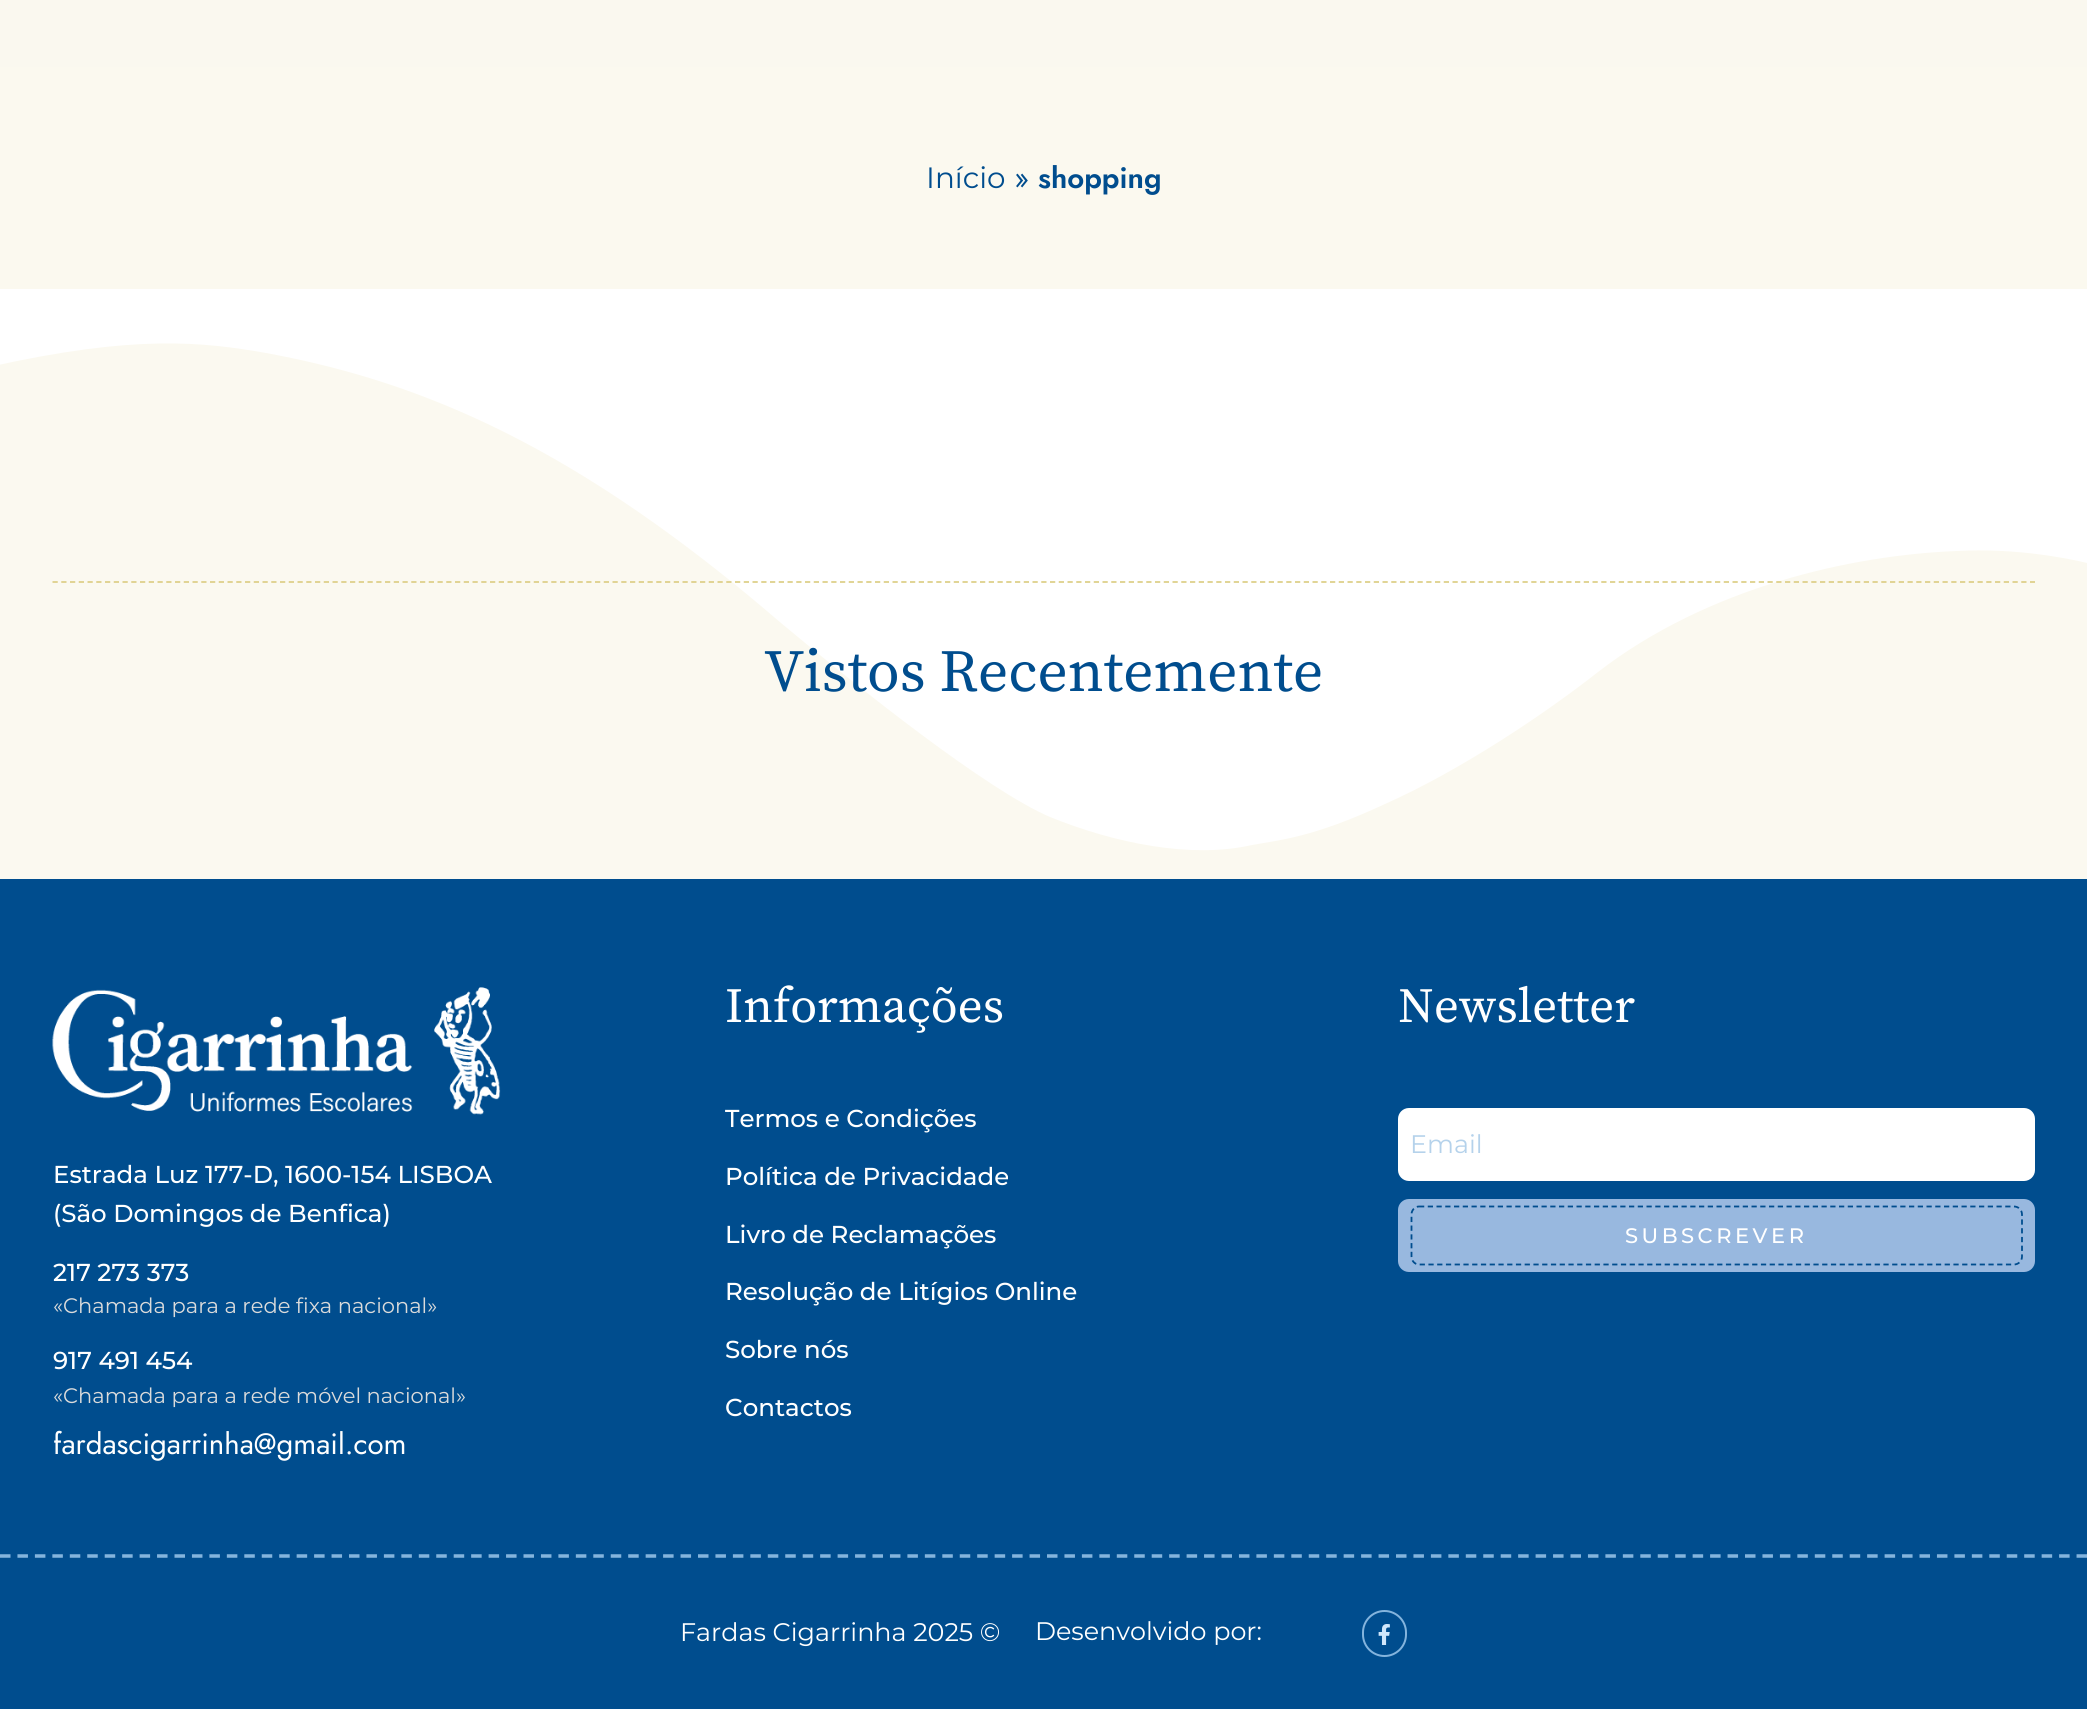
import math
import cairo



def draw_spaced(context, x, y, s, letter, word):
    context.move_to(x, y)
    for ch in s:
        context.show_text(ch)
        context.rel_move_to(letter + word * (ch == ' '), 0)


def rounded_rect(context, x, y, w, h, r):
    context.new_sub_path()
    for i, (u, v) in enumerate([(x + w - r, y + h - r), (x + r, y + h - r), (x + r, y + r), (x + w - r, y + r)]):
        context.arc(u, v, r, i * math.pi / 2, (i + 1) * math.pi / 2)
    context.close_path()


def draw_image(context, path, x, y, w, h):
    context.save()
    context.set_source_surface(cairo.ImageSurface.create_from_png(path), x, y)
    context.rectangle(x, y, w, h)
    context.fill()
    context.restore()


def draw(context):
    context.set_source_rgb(1, 1, 1)
    context.paint()
    context.set_source_rgb(250 / 255, 248 / 255, 239 / 255)
    context.rectangle(0, 0, 2087, 67)
    context.fill()
    context.set_source_rgb(251 / 255, 249 / 255, 239 / 255)
    context.rectangle(0, 67, 2087, 222)
    context.fill()
    context.set_source_rgb(251 / 255, 249 / 255, 240 / 255)
    context.new_path()
    context.move_to(1252, 845)
    context.curve_to(1191, 859, 1114, 843, 1050, 817)
    context.curve_to(987, 790, 860, 689, 781, 623)
    context.curve_to(578, 448, 424, 382, 266, 353)
    context.curve_to(203, 342, 136, 334, -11, 367)
    context.curve_to(-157, 399, -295, 506, -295, 506)
    context.line_to(-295, 881)
    context.line_to(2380, 881)
    context.line_to(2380, 716)
    context.curve_to(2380, 716, 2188, 539, 1957, 551)
    context.curve_to(1852, 555, 1708, 587, 1598, 672)
    context.curve_to(1542, 716, 1459, 771, 1385, 804)
    context.curve_to(1312, 838, 1279, 840, 1252, 845)
    context.close_path()
    context.fill()
    context.new_path()
    context.move_to(52.5, 582)
    context.line_to(2035, 582)
    context.set_source_rgb(222 / 255, 208 / 255, 139 / 255)
    context.set_line_width(1.8)
    context.set_dash([5.25, 3.5])
    context.stroke()
    context.set_source_rgb(0, 77 / 255, 142 / 255)
    context.rectangle(0, 879, 2087, 830)
    context.fill()
    context.set_source_rgb(1, 1, 1)
    rounded_rect(context, 1398, 1108, 637, 73, 11)
    context.fill()
    context.set_source_rgb(152 / 255, 184 / 255, 223 / 255)
    rounded_rect(context, 1398, 1199, 637, 73, 11)
    context.fill()
    draw_image(context, "images/1.png", 52, 987, 449, 128)
    context.new_path()
    context.move_to(0, 1556)
    context.line_to(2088, 1556)
    context.set_source_rgb(132 / 255, 180 / 255, 221 / 255)
    context.set_line_width(3.5)
    context.set_dash([10.5, 6.95])
    context.stroke()
    rounded_rect(context, 1363, 1611, 43, 45, 21.5)
    context.set_line_width(2)
    context.set_dash([])
    context.stroke()
    draw_image(context, "images/2.png", 1378, 1624, 12, 21)
    context.select_font_face("Montserrat")
    context.set_font_size(29.4)
    context.set_source_rgb(0, 77 / 255, 142 / 255)
    context.move_to(926, 188)
    context.show_text("Início")
    context.select_font_face("Jost")
    context.move_to(1014, 188)
    context.show_text("»")
    context.select_font_face("Jost SemiBold")
    context.move_to(1038, 188)
    context.show_text("shopping")
    context.select_font_face("Source Serif Pro")
    context.set_font_size(59.5)
    context.move_to(764, 691)
    context.show_text("Vistos Recentemente")
    context.set_font_size(49)
    context.set_source_rgb(1, 1, 1)
    context.move_to(725, 1022)
    context.show_text("Informações")
    context.select_font_face("Montserrat Medium")
    context.set_font_size(24.5)
    context.move_to(725, 1127)
    context.show_text("Termos e Condições")
    context.move_to(725, 1185)
    context.show_text("Política de Privacidade")
    context.move_to(725, 1243)
    context.show_text("Livro de Reclamações")
    context.move_to(725, 1300)
    context.show_text("Resolução de Litígios Online")
    context.move_to(725, 1358)
    context.show_text("Sobre nós")
    context.move_to(725, 1416)
    context.show_text("Contactos")
    context.select_font_face("Source Serif Pro")
    context.set_font_size(49)
    context.move_to(1398, 1022)
    context.show_text("Newsletter")
    context.select_font_face("Montserrat")
    context.set_font_size(25.4)
    context.set_source_rgb(181 / 255, 210 / 255, 235 / 255)
    context.move_to(1410, 1153)
    context.show_text("Email")
    context.select_font_face("Montserrat Medium")
    context.set_font_size(21)
    context.set_source_rgb(1, 1, 1)
    draw_spaced(context, 1625, 1243, "SUBSCREVER", 3.5, 0)
    context.new_path()
    context.move_to(1419, 1206.5)
    context.line_to(2014, 1206.5)
    context.curve_to(2018.5, 1206.5, 2022, 1210, 2022, 1214.5)
    context.line_to(2022, 1256.5)
    context.curve_to(2022, 1261, 2018.5, 1264.5, 2014, 1264.5)
    context.line_to(1419, 1264.5)
    context.curve_to(1415, 1264.5, 1411.5, 1261, 1411.5, 1256.5)
    context.line_to(1411.5, 1214.5)
    context.curve_to(1411.5, 1210, 1415, 1206.5, 1419, 1206.5)
    context.close_path()
    context.set_source_rgb(0, 77 / 255, 142 / 255)
    context.set_line_width(1.8)
    context.set_dash([5.25, 3.5])
    context.stroke()
    context.set_font_size(24.5)
    context.set_source_rgb(1, 1, 1)
    context.move_to(53, 1183)
    context.show_text("Estrada Luz 177-D, 1600-154 LISBOA")
    context.move_to(53, 1222)
    context.show_text("(São Domingos de Benfica)")
    context.move_to(53, 1281)
    context.show_text("217 273 373")
    context.select_font_face("Montserrat")
    context.set_font_size(21)
    context.set_source_rgb(219 / 255, 219 / 255, 219 / 255)
    context.move_to(53, 1313)
    context.show_text("«Chamada para a rede fixa nacional»")
    context.select_font_face("Montserrat Medium")
    context.set_font_size(24.5)
    context.set_source_rgb(1, 1, 1)
    context.move_to(53, 1369)
    context.show_text("917 491 454")
    context.select_font_face("Montserrat")
    context.set_font_size(21)
    context.set_source_rgb(219 / 255, 219 / 255, 219 / 255)
    context.move_to(53, 1403)
    context.show_text("«Chamada para a rede móvel nacional»")
    context.select_font_face("Jost")
    context.set_font_size(29.4)
    context.set_source_rgb(1, 1, 1)
    context.move_to(53, 1454)
    context.show_text("fardascigarrinha@gmail.com")
    context.select_font_face("Montserrat")
    context.set_font_size(25.4)
    context.move_to(680, 1641)
    context.show_text("Fardas Cigarrinha 2025 ©")
    context.move_to(1035, 1640)
    context.show_text("Desenvolvido por:")


surface = cairo.ImageSurface(cairo.Format.RGB24, 2087, 1709)
context = cairo.Context(surface)
options = cairo.FontOptions()
options.set_hint_metrics(cairo.HintMetrics.OFF)
options.set_hint_style(cairo.HintStyle.NONE)
context.set_font_options(options)
context.set_miter_limit(4)
draw(context)
surface.write_to_png("out.png")
